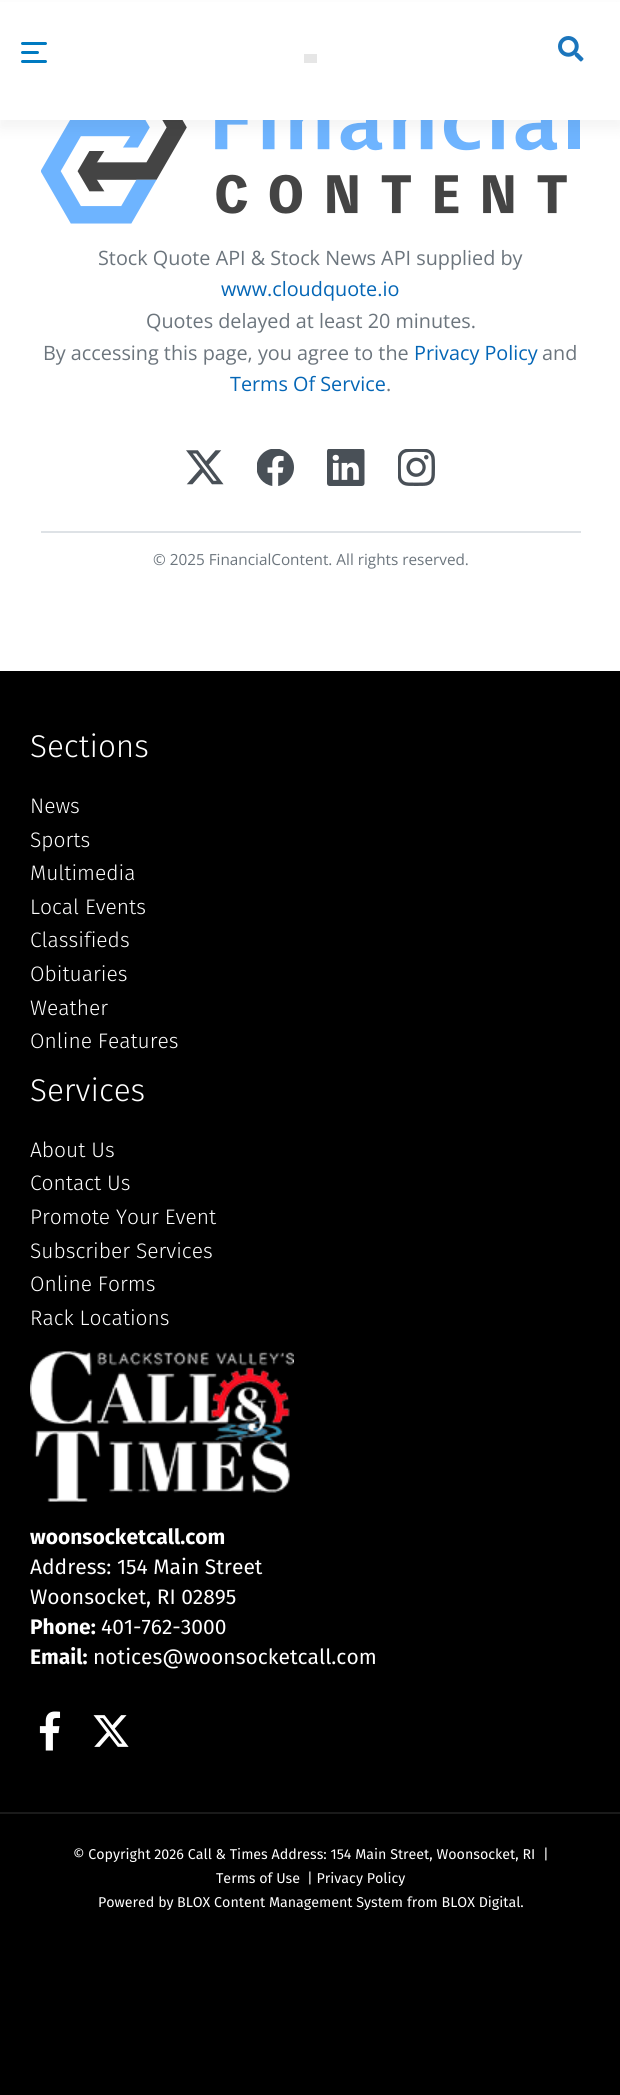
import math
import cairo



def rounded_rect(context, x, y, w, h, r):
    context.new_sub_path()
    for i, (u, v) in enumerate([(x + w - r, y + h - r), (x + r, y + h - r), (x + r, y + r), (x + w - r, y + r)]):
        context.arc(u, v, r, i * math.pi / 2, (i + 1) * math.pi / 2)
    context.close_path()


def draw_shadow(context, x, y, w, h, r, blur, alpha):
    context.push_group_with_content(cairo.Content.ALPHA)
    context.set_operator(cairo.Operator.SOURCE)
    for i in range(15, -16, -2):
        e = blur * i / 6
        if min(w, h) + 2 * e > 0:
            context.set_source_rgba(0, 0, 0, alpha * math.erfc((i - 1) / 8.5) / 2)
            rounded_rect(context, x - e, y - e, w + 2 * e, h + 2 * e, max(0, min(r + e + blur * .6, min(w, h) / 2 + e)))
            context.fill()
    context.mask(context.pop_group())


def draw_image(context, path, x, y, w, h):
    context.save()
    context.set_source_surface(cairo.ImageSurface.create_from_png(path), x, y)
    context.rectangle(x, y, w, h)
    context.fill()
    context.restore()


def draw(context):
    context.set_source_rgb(1, 1, 1)
    context.paint()
    draw_image(context, "images/2.png", 41, 120, 539, 104)
    context.set_source_rgb(0, 0, 0)
    draw_shadow(context, 0, 8, 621, 120, 0, 7.5, 0.05)
    context.set_source_rgb(1, 1, 1)
    context.rectangle(0, 2, 620, 118)
    context.fill()
    context.set_source_rgb(0, 122 / 255, 193 / 255)
    rounded_rect(context, 21, 42, 26, 3, 1.5)
    context.fill()
    rounded_rect(context, 21, 51, 18, 3, 1.5)
    context.fill()
    rounded_rect(context, 21, 60, 26, 3, 1.5)
    context.fill()
    context.set_source_rgb(230 / 255, 230 / 255, 230 / 255)
    context.rectangle(304, 54, 13, 9)
    context.fill()
    draw_image(context, "images/1.png", 558, 36, 26, 26)
    draw_image(context, "images/3.png", 186, 450, 38, 35)
    draw_image(context, "images/4.png", 257, 449, 37, 37)
    draw_image(context, "images/5.png", 327, 449, 38, 37)
    draw_image(context, "images/6.png", 398, 449, 37, 37)
    context.set_source_rgb(222 / 255, 226 / 255, 230 / 255)
    context.rectangle(41, 531, 540, 2)
    context.fill()
    context.set_source_rgb(0, 0, 0)
    context.rectangle(0, 671, 620, 1424)
    context.fill()
    draw_image(context, "images/7.png", 30, 1351, 264, 151)
    draw_image(context, "images/8.png", 39, 1711, 22, 40)
    draw_image(context, "images/9.png", 93, 1715, 36, 32)
    context.set_source_rgb(26 / 255, 26 / 255, 26 / 255)
    context.rectangle(0, 1812, 620, 2)
    context.fill()
    context.select_font_face("Open Sans")
    context.set_font_size(19.8)
    context.set_source_rgb(108 / 255, 117 / 255, 125 / 255)
    context.move_to(98, 265)
    context.show_text("Stock Quote API & Stock News API supplied by")
    context.set_source_rgb(4 / 255, 102 / 255, 182 / 255)
    context.move_to(221, 296)
    context.show_text("www.cloudquote.io")
    context.set_source_rgb(108 / 255, 117 / 255, 125 / 255)
    context.move_to(146, 328)
    context.show_text("Quotes delayed at least 20 minutes.")
    context.move_to(43, 360)
    context.show_text("By accessing this page, you agree to the")
    context.set_source_rgb(4 / 255, 102 / 255, 182 / 255)
    context.move_to(414, 360)
    context.show_text("Privacy Policy")
    context.set_source_rgb(108 / 255, 117 / 255, 125 / 255)
    context.move_to(542, 360)
    context.show_text("and")
    context.set_source_rgb(4 / 255, 102 / 255, 182 / 255)
    context.move_to(230, 391)
    context.show_text("Terms Of Service")
    context.set_source_rgb(108 / 255, 117 / 255, 125 / 255)
    context.move_to(386, 391)
    context.show_text(".")
    context.set_font_size(15.3)
    context.move_to(153, 565)
    context.show_text("© 2025 FinancialContent. All rights reserved.")
    context.select_font_face("Fira Sans Light")
    context.set_font_size(31.5)
    context.set_source_rgb(1, 1, 1)
    context.move_to(30, 757)
    context.show_text("Sections")
    context.set_font_size(21)
    context.move_to(30, 813)
    context.show_text("News")
    context.move_to(30, 847)
    context.show_text("Sports")
    context.move_to(30, 880)
    context.show_text("Multimedia")
    context.move_to(30, 914)
    context.show_text("Local Events")
    context.move_to(30, 947)
    context.show_text("Classifieds")
    context.move_to(30, 981)
    context.show_text("Obituaries")
    context.move_to(30, 1015)
    context.show_text("Weather")
    context.move_to(30, 1048)
    context.show_text("Online Features")
    context.set_font_size(31.5)
    context.move_to(30, 1101)
    context.show_text("Services")
    context.set_font_size(21)
    context.move_to(30, 1157)
    context.show_text("About Us")
    context.move_to(30, 1190)
    context.show_text("Contact Us")
    context.move_to(30, 1224)
    context.show_text("Promote Your Event")
    context.move_to(30, 1258)
    context.show_text("Subscriber Services")
    context.move_to(30, 1291)
    context.show_text("Online Forms")
    context.move_to(30, 1325)
    context.show_text("Rack Locations")
    context.select_font_face("Fira Sans", cairo.FontSlant.NORMAL, cairo.FontWeight.BOLD)
    context.move_to(30, 1544)
    context.show_text("woonsocketcall.com")
    context.select_font_face("Fira Sans")
    context.move_to(30, 1574)
    context.show_text("Address: 154 Main Street")
    context.move_to(30, 1604)
    context.show_text("Woonsocket, RI 02895")
    context.select_font_face("Fira Sans", cairo.FontSlant.NORMAL, cairo.FontWeight.BOLD)
    context.move_to(30, 1634)
    context.show_text("Phone:")
    context.select_font_face("Fira Sans")
    context.move_to(101, 1634)
    context.show_text("401-762-3000")
    context.select_font_face("Fira Sans", cairo.FontSlant.NORMAL, cairo.FontWeight.BOLD)
    context.move_to(30, 1664)
    context.show_text("Email:")
    context.select_font_face("Fira Sans")
    context.move_to(93, 1664)
    context.show_text("notices@woonsocketcall.com")
    context.set_font_size(14.25)
    context.move_to(73, 1859)
    context.show_text("© Copyright 2026 Call & Times Address: 154 Main Street, Woonsocket, RI")
    context.move_to(543, 1859)
    context.show_text("|")
    context.move_to(216, 1883)
    context.show_text("Terms of Use")
    context.move_to(307, 1883)
    context.show_text("| Privacy Policy")
    context.move_to(98, 1907)
    context.show_text("Powered by")
    context.move_to(177, 1907)
    context.show_text("BLOX Content Management System")
    context.move_to(407, 1907)
    context.show_text("from BLOX Digital.")


surface = cairo.ImageSurface(cairo.Format.RGB24, 620, 2095)
context = cairo.Context(surface)
options = cairo.FontOptions()
options.set_hint_metrics(cairo.HintMetrics.OFF)
options.set_hint_style(cairo.HintStyle.NONE)
context.set_font_options(options)
context.set_miter_limit(4)
draw(context)
surface.write_to_png("out.png")
